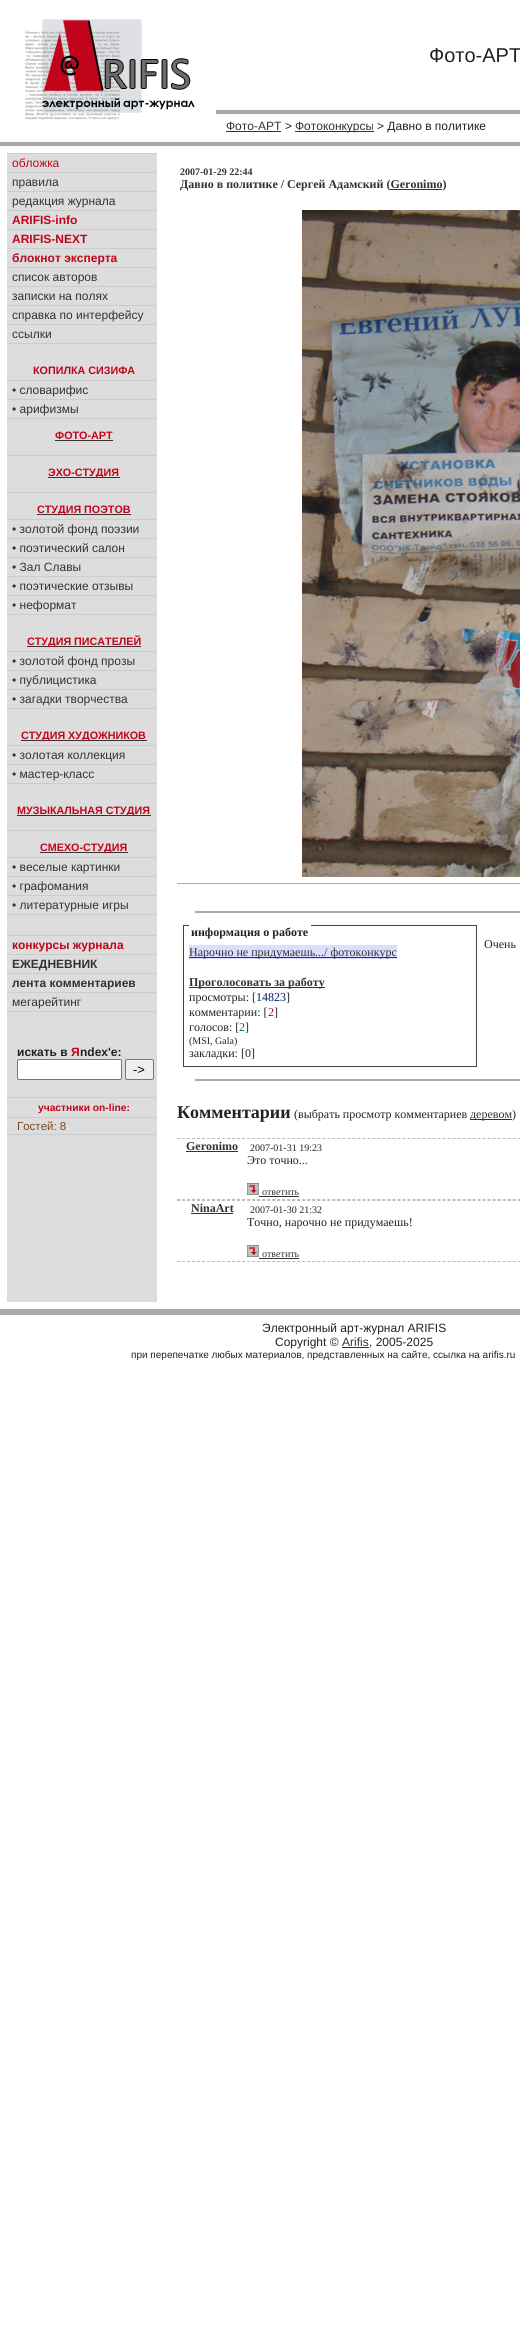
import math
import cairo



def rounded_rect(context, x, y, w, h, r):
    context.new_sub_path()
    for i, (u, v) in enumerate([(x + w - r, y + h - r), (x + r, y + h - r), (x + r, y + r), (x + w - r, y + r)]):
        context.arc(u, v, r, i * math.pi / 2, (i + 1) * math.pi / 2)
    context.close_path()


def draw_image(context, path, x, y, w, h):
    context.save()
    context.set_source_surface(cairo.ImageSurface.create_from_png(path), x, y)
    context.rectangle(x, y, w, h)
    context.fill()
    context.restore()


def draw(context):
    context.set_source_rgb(1, 1, 1)
    context.paint()
    draw_image(context, "images/1.png", 25, 19, 170, 101)
    context.set_source_rgb(170 / 255, 170 / 255, 170 / 255)
    context.rectangle(216, 110, 304, 4)
    context.fill()
    context.set_source_rgb(51 / 255, 51 / 255, 51 / 255)
    context.rectangle(226, 131, 55, 1)
    context.fill()
    context.rectangle(295, 131, 79, 1)
    context.fill()
    context.set_source_rgb(170 / 255, 170 / 255, 170 / 255)
    context.rectangle(0, 142, 520, 4)
    context.fill()
    context.set_source_rgb(221 / 255, 221 / 255, 221 / 255)
    context.rectangle(7, 154, 150, 1148)
    context.fill()
    context.set_source_rgb(204 / 255, 204 / 255, 204 / 255)
    context.rectangle(7, 343, 150, 1)
    context.fill()
    context.rectangle(7, 153, 150, 1)
    context.fill()
    context.rectangle(7, 172, 150, 1)
    context.fill()
    context.rectangle(7, 191, 150, 1)
    context.fill()
    context.rectangle(7, 210, 150, 1)
    context.fill()
    context.rectangle(7, 229, 150, 1)
    context.fill()
    context.rectangle(7, 248, 150, 1)
    context.fill()
    context.rectangle(7, 267, 150, 1)
    context.fill()
    context.rectangle(7, 286, 150, 1)
    context.fill()
    context.rectangle(7, 305, 150, 1)
    context.fill()
    context.rectangle(7, 324, 150, 1)
    context.fill()
    context.rectangle(7, 418, 150, 1)
    context.fill()
    context.rectangle(7, 380, 150, 1)
    context.fill()
    context.rectangle(7, 399, 150, 1)
    context.fill()
    context.set_source_rgb(51 / 255, 51 / 255, 51 / 255)
    context.rectangle(55, 440, 58, 1)
    context.fill()
    context.set_source_rgb(204 / 255, 204 / 255, 204 / 255)
    context.rectangle(7, 455, 150, 1)
    context.fill()
    context.set_source_rgb(51 / 255, 51 / 255, 51 / 255)
    context.rectangle(48, 477, 72, 1)
    context.fill()
    context.set_source_rgb(204 / 255, 204 / 255, 204 / 255)
    context.rectangle(7, 492, 150, 1)
    context.fill()
    context.set_source_rgb(51 / 255, 51 / 255, 51 / 255)
    context.rectangle(37, 514, 94, 1)
    context.fill()
    context.set_source_rgb(204 / 255, 204 / 255, 204 / 255)
    context.rectangle(7, 614, 150, 1)
    context.fill()
    context.rectangle(7, 519, 150, 1)
    context.fill()
    context.rectangle(7, 538, 150, 1)
    context.fill()
    context.rectangle(7, 557, 150, 1)
    context.fill()
    context.rectangle(7, 576, 150, 1)
    context.fill()
    context.rectangle(7, 595, 150, 1)
    context.fill()
    context.set_source_rgb(51 / 255, 51 / 255, 51 / 255)
    context.rectangle(27, 646, 114, 1)
    context.fill()
    context.set_source_rgb(204 / 255, 204 / 255, 204 / 255)
    context.rectangle(7, 708, 150, 1)
    context.fill()
    context.rectangle(7, 651, 150, 1)
    context.fill()
    context.rectangle(7, 670, 150, 1)
    context.fill()
    context.rectangle(7, 689, 150, 1)
    context.fill()
    context.set_source_rgb(51 / 255, 51 / 255, 51 / 255)
    context.rectangle(21, 740, 126, 1)
    context.fill()
    context.set_source_rgb(204 / 255, 204 / 255, 204 / 255)
    context.rectangle(7, 783, 150, 1)
    context.fill()
    context.rectangle(7, 745, 150, 1)
    context.fill()
    context.rectangle(7, 764, 150, 1)
    context.fill()
    context.set_source_rgb(51 / 255, 51 / 255, 51 / 255)
    context.rectangle(17, 815, 134, 1)
    context.fill()
    context.set_source_rgb(204 / 255, 204 / 255, 204 / 255)
    context.rectangle(7, 830, 150, 1)
    context.fill()
    context.set_source_rgb(51 / 255, 51 / 255, 51 / 255)
    context.rectangle(40, 852, 88, 1)
    context.fill()
    context.set_source_rgb(204 / 255, 204 / 255, 204 / 255)
    context.rectangle(7, 914, 150, 1)
    context.fill()
    context.rectangle(7, 857, 150, 1)
    context.fill()
    context.rectangle(7, 876, 150, 1)
    context.fill()
    context.rectangle(7, 895, 150, 1)
    context.fill()
    context.rectangle(7, 1011, 150, 1)
    context.fill()
    context.rectangle(7, 935, 150, 1)
    context.fill()
    context.rectangle(7, 954, 150, 1)
    context.fill()
    context.rectangle(7, 973, 150, 1)
    context.fill()
    context.rectangle(7, 992, 150, 1)
    context.fill()
    context.rectangle(7, 1097, 150, 1)
    context.fill()
    context.set_source_rgb(1, 1, 1)
    rounded_rect(context, 17.5, 1059.5, 104, 20, 1.5)
    context.fill_preserve()
    context.set_source_rgb(118 / 255, 118 / 255, 118 / 255)
    context.set_line_width(1)
    context.stroke()
    context.set_source_rgb(239 / 255, 239 / 255, 239 / 255)
    rounded_rect(context, 125.5, 1059.5, 28, 20, 1.5)
    context.fill_preserve()
    context.set_source_rgb(118 / 255, 118 / 255, 118 / 255)
    context.stroke()
    context.set_source_rgb(204 / 255, 204 / 255, 204 / 255)
    context.rectangle(7, 1134, 150, 1)
    context.fill()
    context.rectangle(7, 1117, 150, 1)
    context.fill()
    context.set_source_rgb(51 / 255, 51 / 255, 51 / 255)
    context.rectangle(390, 189, 52, 1)
    context.fill()
    draw_image(context, "images/2.png", 302, 210, 218, 667)
    context.set_source_rgb(170 / 255, 170 / 255, 170 / 255)
    context.rectangle(177, 883, 343, 1)
    context.fill()
    context.rectangle(195, 911, 325, 2)
    context.fill()
    context.rectangle(183.5, 925.5, 293, 141)
    context.set_source_rgb(68 / 255, 68 / 255, 68 / 255)
    context.stroke()
    context.set_source_rgb(1, 1, 1)
    context.rectangle(189, 925, 122, 1)
    context.fill()
    context.set_source_rgb(221 / 255, 221 / 255, 1)
    context.rectangle(189, 945, 208, 14)
    context.fill()
    context.set_source_rgb(51 / 255, 51 / 255, 51 / 255)
    context.rectangle(189, 957, 208, 1)
    context.fill()
    context.rectangle(189, 987, 136, 1)
    context.fill()
    context.set_source_rgb(170 / 255, 170 / 255, 170 / 255)
    context.rectangle(195, 1079, 325, 2)
    context.fill()
    context.set_source_rgb(51 / 255, 51 / 255, 51 / 255)
    context.rectangle(470, 1119, 42, 1)
    context.fill()
    context.new_path()
    context.move_to(177, 1138.5)
    context.line_to(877, 1138.5)
    context.set_source_rgb(187 / 255, 187 / 255, 187 / 255)
    context.set_dash([3, 2.01])
    context.stroke()
    context.new_path()
    context.move_to(177, 1199.5)
    context.line_to(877, 1199.5)
    context.stroke()
    context.set_source_rgb(51 / 255, 51 / 255, 51 / 255)
    context.rectangle(186, 1151, 52, 1)
    context.fill()
    draw_image(context, "images/3.png", 247, 1183, 12, 12)
    context.rectangle(259, 1196, 40, 1)
    context.fill()
    context.new_path()
    context.move_to(177, 1200.5)
    context.line_to(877, 1200.5)
    context.set_source_rgb(187 / 255, 187 / 255, 187 / 255)
    context.stroke()
    context.new_path()
    context.move_to(177, 1261.5)
    context.line_to(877, 1261.5)
    context.stroke()
    context.set_source_rgb(51 / 255, 51 / 255, 51 / 255)
    context.rectangle(191, 1213, 42, 1)
    context.fill()
    draw_image(context, "images/3.png", 247, 1245, 12, 12)
    context.rectangle(259, 1258, 40, 1)
    context.fill()
    context.set_source_rgb(170 / 255, 170 / 255, 170 / 255)
    context.rectangle(0, 1309, 520, 6)
    context.fill()
    context.set_source_rgb(51 / 255, 51 / 255, 51 / 255)
    context.rectangle(342, 1347, 27, 1)
    context.fill()
    context.select_font_face("Liberation Sans")
    context.set_font_size(20)
    context.set_source_rgb(34 / 255, 34 / 255, 34 / 255)
    context.move_to(429, 62)
    context.show_text("Фото-АРТ")
    context.set_font_size(12)
    context.set_source_rgb(51 / 255, 51 / 255, 51 / 255)
    context.move_to(226, 130)
    context.show_text("Фото-АРТ")
    context.set_source_rgb(34 / 255, 34 / 255, 34 / 255)
    context.move_to(285, 130)
    context.show_text(">")
    context.set_source_rgb(51 / 255, 51 / 255, 51 / 255)
    context.move_to(295, 130)
    context.show_text("Фотоконкурсы")
    context.set_source_rgb(34 / 255, 34 / 255, 34 / 255)
    context.move_to(377, 130)
    context.show_text("> Давно в политике")
    context.set_source_rgb(194 / 255, 4 / 255, 26 / 255)
    context.move_to(12, 167)
    context.show_text("обложка")
    context.set_source_rgb(51 / 255, 51 / 255, 51 / 255)
    context.move_to(12, 186)
    context.show_text("правила")
    context.move_to(12, 205)
    context.show_text("редакция журнала")
    context.select_font_face("Liberation Sans", cairo.FontSlant.NORMAL, cairo.FontWeight.BOLD)
    context.set_source_rgb(194 / 255, 4 / 255, 26 / 255)
    context.move_to(12, 224)
    context.show_text("ARIFIS-info")
    context.move_to(12, 243)
    context.show_text("ARIFIS-NEXT")
    context.move_to(12, 262)
    context.show_text("блокнот эксперта")
    context.select_font_face("Liberation Sans")
    context.set_source_rgb(51 / 255, 51 / 255, 51 / 255)
    context.move_to(12, 281)
    context.show_text("список авторов")
    context.move_to(12, 300)
    context.show_text("записки на полях")
    context.move_to(12, 319)
    context.show_text("справка по интерфейсу")
    context.move_to(12, 338)
    context.show_text("ссылки")
    context.select_font_face("Liberation Sans", cairo.FontSlant.NORMAL, cairo.FontWeight.BOLD)
    context.set_font_size(10.75)
    context.set_source_rgb(194 / 255, 4 / 255, 26 / 255)
    context.move_to(33, 374)
    context.show_text("КОПИЛКА СИЗИФА")
    context.select_font_face("Liberation Sans")
    context.set_font_size(12)
    context.set_source_rgb(51 / 255, 51 / 255, 51 / 255)
    context.move_to(12, 394)
    context.show_text("• словарифис")
    context.move_to(12, 413)
    context.show_text("• арифизмы")
    context.select_font_face("Liberation Sans", cairo.FontSlant.NORMAL, cairo.FontWeight.BOLD)
    context.set_font_size(10.75)
    context.set_source_rgb(194 / 255, 4 / 255, 26 / 255)
    context.move_to(55, 439)
    context.show_text("ФОТО-АРТ")
    context.move_to(48, 476)
    context.show_text("ЭХО-СТУДИЯ")
    context.move_to(37, 513)
    context.show_text("СТУДИЯ ПОЭТОВ")
    context.select_font_face("Liberation Sans")
    context.set_font_size(12)
    context.set_source_rgb(51 / 255, 51 / 255, 51 / 255)
    context.move_to(12, 533)
    context.show_text("• золотой фонд поэзии")
    context.move_to(12, 552)
    context.show_text("• поэтический салон")
    context.move_to(12, 571)
    context.show_text("• Зал Славы")
    context.move_to(12, 590)
    context.show_text("• поэтические отзывы")
    context.move_to(12, 609)
    context.show_text("• неформат")
    context.select_font_face("Liberation Sans", cairo.FontSlant.NORMAL, cairo.FontWeight.BOLD)
    context.set_font_size(10.75)
    context.set_source_rgb(194 / 255, 4 / 255, 26 / 255)
    context.move_to(27, 645)
    context.show_text("СТУДИЯ ПИСАТЕЛЕЙ")
    context.select_font_face("Liberation Sans")
    context.set_font_size(12)
    context.set_source_rgb(51 / 255, 51 / 255, 51 / 255)
    context.move_to(12, 665)
    context.show_text("• золотой фонд прозы")
    context.move_to(12, 684)
    context.show_text("• публицистика")
    context.move_to(12, 703)
    context.show_text("• загадки творчества")
    context.select_font_face("Liberation Sans", cairo.FontSlant.NORMAL, cairo.FontWeight.BOLD)
    context.set_font_size(10.75)
    context.set_source_rgb(194 / 255, 4 / 255, 26 / 255)
    context.move_to(21, 739)
    context.show_text("СТУДИЯ ХУДОЖНИКОВ")
    context.select_font_face("Liberation Sans")
    context.set_font_size(12)
    context.set_source_rgb(51 / 255, 51 / 255, 51 / 255)
    context.move_to(12, 759)
    context.show_text("• золотая коллекция")
    context.move_to(12, 778)
    context.show_text("• мастер-класс")
    context.select_font_face("Liberation Sans", cairo.FontSlant.NORMAL, cairo.FontWeight.BOLD)
    context.set_font_size(10.75)
    context.set_source_rgb(194 / 255, 4 / 255, 26 / 255)
    context.move_to(17, 814)
    context.show_text("МУЗЫКАЛЬНАЯ СТУДИЯ")
    context.move_to(40, 851)
    context.show_text("СМЕХО-СТУДИЯ")
    context.select_font_face("Liberation Sans")
    context.set_font_size(12)
    context.set_source_rgb(51 / 255, 51 / 255, 51 / 255)
    context.move_to(12, 871)
    context.show_text("• веселые картинки")
    context.move_to(12, 890)
    context.show_text("• графомания")
    context.move_to(12, 909)
    context.show_text("• литературные игры")
    context.select_font_face("Liberation Sans", cairo.FontSlant.NORMAL, cairo.FontWeight.BOLD)
    context.set_source_rgb(194 / 255, 4 / 255, 26 / 255)
    context.move_to(12, 949)
    context.show_text("конкурсы журнала")
    context.set_source_rgb(51 / 255, 51 / 255, 51 / 255)
    context.move_to(12, 968)
    context.show_text("ЕЖЕДНЕВНИК")
    context.move_to(12, 987)
    context.show_text("лента комментариев")
    context.select_font_face("Liberation Sans")
    context.move_to(12, 1006)
    context.show_text("мегарейтинг")
    context.select_font_face("Liberation Sans", cairo.FontSlant.NORMAL, cairo.FontWeight.BOLD)
    context.set_source_rgb(34 / 255, 34 / 255, 34 / 255)
    context.move_to(17, 1056)
    context.show_text("искать в")
    context.set_source_rgb(194 / 255, 4 / 255, 26 / 255)
    context.move_to(71, 1056)
    context.show_text("Я")
    context.set_source_rgb(34 / 255, 34 / 255, 34 / 255)
    context.move_to(80, 1056)
    context.show_text("ndex'е:")
    context.select_font_face("Liberation Sans")
    context.set_font_size(13)
    context.set_source_rgb(0, 0, 0)
    context.move_to(133, 1074)
    context.show_text("->")
    context.select_font_face("Liberation Sans", cairo.FontSlant.NORMAL, cairo.FontWeight.BOLD)
    context.set_font_size(10.25)
    context.set_source_rgb(194 / 255, 4 / 255, 26 / 255)
    context.move_to(38, 1111)
    context.show_text("участники on-line:")
    context.select_font_face("Liberation Sans")
    context.set_font_size(11.5)
    context.set_source_rgb(122 / 255, 71 / 255, 30 / 255)
    context.move_to(17, 1130)
    context.show_text("Гостей: 8")
    context.select_font_face("Liberation Serif", cairo.FontSlant.NORMAL, cairo.FontWeight.BOLD)
    context.set_font_size(10)
    context.set_source_rgb(51 / 255, 51 / 255, 51 / 255)
    context.move_to(180, 175)
    context.show_text("2007-01-29 22:44")
    context.set_font_size(12)
    context.move_to(180, 188)
    context.show_text("Давно в политике / Сергей Адамский (Geronimo)")
    context.set_source_rgb(34 / 255, 34 / 255, 34 / 255)
    context.move_to(191, 936)
    context.show_text("информация о работе")
    context.select_font_face("Liberation Serif")
    context.set_source_rgb(51 / 255, 51 / 255, 51 / 255)
    context.move_to(189, 956)
    context.show_text("Нарочно не придумаешь.../ фотоконкурс")
    context.select_font_face("Liberation Serif", cairo.FontSlant.NORMAL, cairo.FontWeight.BOLD)
    context.move_to(189, 986)
    context.show_text("Проголосовать за работу")
    context.select_font_face("Liberation Serif")
    context.set_source_rgb(34 / 255, 34 / 255, 34 / 255)
    context.move_to(189, 1001)
    context.show_text("просмотры: [")
    context.set_source_rgb(5 / 255, 29 / 255, 98 / 255)
    context.move_to(256, 1001)
    context.show_text("14823")
    context.set_source_rgb(34 / 255, 34 / 255, 34 / 255)
    context.move_to(286, 1001)
    context.show_text("]")
    context.move_to(189, 1016)
    context.show_text("комментарии: [")
    context.set_source_rgb(194 / 255, 4 / 255, 26 / 255)
    context.move_to(268, 1016)
    context.show_text("2")
    context.set_source_rgb(34 / 255, 34 / 255, 34 / 255)
    context.move_to(274, 1016)
    context.show_text("]")
    context.move_to(189, 1031)
    context.show_text("голосов: [")
    context.set_source_rgb(5 / 255, 121 / 255, 68 / 255)
    context.move_to(239, 1031)
    context.show_text("2")
    context.set_source_rgb(34 / 255, 34 / 255, 34 / 255)
    context.move_to(245, 1031)
    context.show_text("]")
    context.set_font_size(10)
    context.move_to(189, 1044)
    context.show_text("(MSI, Gala)")
    context.set_font_size(12)
    context.move_to(189, 1057)
    context.show_text("закладки: [0]")
    context.move_to(484, 948)
    context.show_text("Очень")
    context.select_font_face("Liberation Serif", cairo.FontSlant.NORMAL, cairo.FontWeight.BOLD)
    context.set_font_size(18)
    context.move_to(177, 1118)
    context.show_text("Комментарии")
    context.select_font_face("Liberation Serif")
    context.set_font_size(12)
    context.move_to(294, 1118)
    context.show_text("(выбрать просмотр комментариев")
    context.set_source_rgb(51 / 255, 51 / 255, 51 / 255)
    context.move_to(470, 1118)
    context.show_text("деревом")
    context.set_source_rgb(34 / 255, 34 / 255, 34 / 255)
    context.move_to(512, 1118)
    context.show_text(")")
    context.select_font_face("Liberation Serif", cairo.FontSlant.NORMAL, cairo.FontWeight.BOLD)
    context.set_source_rgb(51 / 255, 51 / 255, 51 / 255)
    context.move_to(186, 1150)
    context.show_text("Geronimo")
    context.select_font_face("Liberation Serif")
    context.set_font_size(10)
    context.set_source_rgb(34 / 255, 34 / 255, 34 / 255)
    context.move_to(250, 1151)
    context.show_text("2007-01-31 19:23")
    context.set_font_size(12)
    context.move_to(247, 1164)
    context.show_text("Это точно...")
    context.set_font_size(10)
    context.set_source_rgb(51 / 255, 51 / 255, 51 / 255)
    context.move_to(262, 1195)
    context.show_text("ответить")
    context.select_font_face("Liberation Serif", cairo.FontSlant.NORMAL, cairo.FontWeight.BOLD)
    context.set_font_size(12)
    context.move_to(191, 1212)
    context.show_text("NinaArt")
    context.select_font_face("Liberation Serif")
    context.set_font_size(10)
    context.set_source_rgb(34 / 255, 34 / 255, 34 / 255)
    context.move_to(250, 1213)
    context.show_text("2007-01-30 21:32")
    context.set_font_size(12)
    context.move_to(247, 1226)
    context.show_text("Точно, нарочно не придумаешь!")
    context.set_font_size(10)
    context.set_source_rgb(51 / 255, 51 / 255, 51 / 255)
    context.move_to(262, 1257)
    context.show_text("ответить")
    context.select_font_face("Liberation Sans")
    context.set_font_size(12)
    context.set_source_rgb(34 / 255, 34 / 255, 34 / 255)
    context.move_to(262, 1332)
    context.show_text("Электронный арт-журнал ARIFIS")
    context.move_to(275, 1346)
    context.show_text("Copyright ©")
    context.set_source_rgb(51 / 255, 51 / 255, 51 / 255)
    context.move_to(342, 1346)
    context.show_text("Arifis")
    context.set_source_rgb(34 / 255, 34 / 255, 34 / 255)
    context.move_to(369, 1346)
    context.show_text(", 2005-2025")
    context.set_font_size(10)
    context.move_to(131, 1358)
    context.show_text("при перепечатке любых материалов, представленных на сайте, ссылка на arifis.ru")


surface = cairo.ImageSurface(cairo.Format.RGB24, 520, 2335)
context = cairo.Context(surface)
options = cairo.FontOptions()
options.set_hint_metrics(cairo.HintMetrics.OFF)
options.set_hint_style(cairo.HintStyle.NONE)
context.set_font_options(options)
context.set_miter_limit(4)
draw(context)
surface.write_to_png("out.png")
